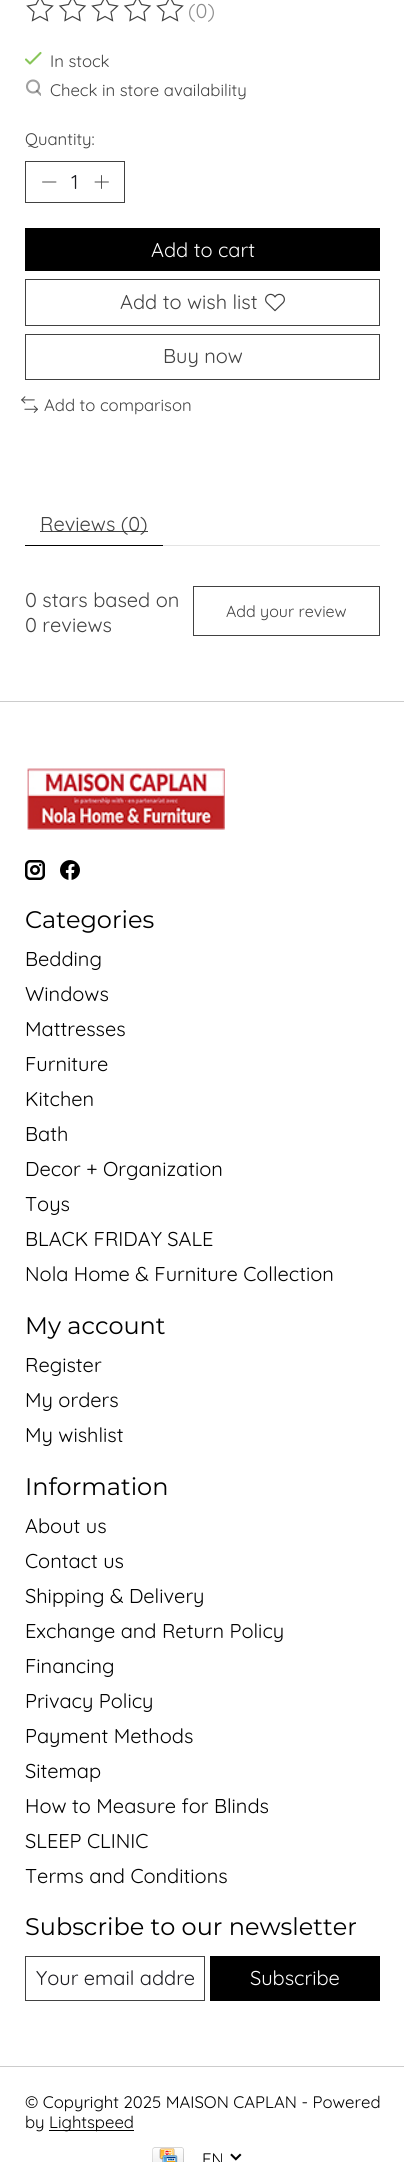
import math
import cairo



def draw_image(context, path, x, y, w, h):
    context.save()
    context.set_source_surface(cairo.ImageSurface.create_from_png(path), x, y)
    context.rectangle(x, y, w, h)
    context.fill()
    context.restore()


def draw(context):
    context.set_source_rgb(1, 1, 1)
    context.paint()
    context.new_path()
    context.move_to(40, -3)
    context.line_to(44, 4.5)
    context.line_to(52.5, 6)
    context.line_to(46, 12)
    context.line_to(47.5, 20.5)
    context.line_to(40, 16.5)
    context.line_to(32.5, 20.5)
    context.line_to(34, 12)
    context.line_to(27.5, 6)
    context.line_to(36, 4.5)
    context.close_path()
    context.move_to(72.5, -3)
    context.line_to(76.5, 4.5)
    context.line_to(85, 6)
    context.line_to(79, 12)
    context.line_to(80, 20.5)
    context.line_to(72.5, 16.5)
    context.line_to(65, 20.5)
    context.line_to(66, 12)
    context.line_to(60, 6)
    context.line_to(68.5, 4.5)
    context.close_path()
    context.set_source_rgb(65 / 255, 65 / 255, 65 / 255)
    context.set_line_width(1.2)
    context.stroke()
    context.new_path()
    context.move_to(105, -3)
    context.line_to(109, 4.5)
    context.line_to(117.5, 6)
    context.line_to(111, 12)
    context.line_to(112.5, 20.5)
    context.line_to(105, 16.5)
    context.line_to(97.5, 20.5)
    context.line_to(99, 12)
    context.line_to(92.5, 6)
    context.line_to(101, 4.5)
    context.close_path()
    context.move_to(137.5, -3)
    context.line_to(141.5, 4.5)
    context.line_to(150, 6)
    context.line_to(144, 12)
    context.line_to(145, 20.5)
    context.line_to(137.5, 16.5)
    context.line_to(130, 20.5)
    context.line_to(131, 12)
    context.line_to(125, 6)
    context.line_to(133.5, 4.5)
    context.close_path()
    context.stroke()
    context.new_path()
    context.move_to(170, -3)
    context.line_to(174, 4.5)
    context.line_to(182.5, 6)
    context.line_to(176, 12)
    context.line_to(177.5, 20.5)
    context.line_to(170, 16.5)
    context.line_to(162.5, 20.5)
    context.line_to(164, 12)
    context.line_to(157.5, 6)
    context.line_to(166, 4.5)
    context.close_path()
    context.stroke()
    context.new_path()
    context.move_to(26, 59.5)
    context.line_to(30, 63.5)
    context.line_to(40.5, 53)
    context.set_source_rgb(136 / 255, 197 / 255, 89 / 255)
    context.set_line_width(2.1)
    context.set_line_cap(cairo.LineCap.ROUND)
    context.set_line_join(cairo.LineJoin.ROUND)
    context.stroke()
    context.arc(33, 86.5, 6, 0, 2 * math.pi)
    context.set_source_rgb(160 / 255, 160 / 255, 160 / 255)
    context.set_line_cap(cairo.LineCap.BUTT)
    context.set_line_join(cairo.LineJoin.MITER)
    context.stroke()
    context.save()
    context.rectangle(25, 79, 16, 17)
    context.clip()
    context.new_path()
    context.move_to(41, 95)
    context.line_to(37, 91)
    context.set_source_rgba(65 / 255, 65 / 255, 65 / 255, 0.5)
    context.set_line_cap(cairo.LineCap.ROUND)
    context.set_line_join(cairo.LineJoin.ROUND)
    context.stroke()
    context.restore()
    context.rectangle(25.5, 161.5, 99, 41)
    context.set_source_rgb(65 / 255, 65 / 255, 65 / 255)
    context.set_line_width(1)
    context.stroke()
    context.new_path()
    context.move_to(42.5, 182)
    context.line_to(56, 182)
    context.set_line_width(0.9)
    context.set_line_cap(cairo.LineCap.ROUND)
    context.set_line_join(cairo.LineJoin.ROUND)
    context.stroke()
    context.new_path()
    context.move_to(101.5, 175.5)
    context.line_to(101.5, 188.5)
    context.move_to(95, 182)
    context.line_to(108.5, 182)
    context.stroke()
    context.set_source_rgb(0, 0, 0)
    context.rectangle(25, 228, 355, 43)
    context.fill()
    context.rectangle(25.5, 279.5, 354, 46)
    context.set_source_rgb(65 / 255, 65 / 255, 65 / 255)
    context.set_line_width(1)
    context.set_line_cap(cairo.LineCap.BUTT)
    context.set_line_join(cairo.LineJoin.MITER)
    context.stroke()
    draw_image(context, "images/1.png", 265, 293, 20, 19)
    context.rectangle(25.5, 334.5, 354, 45)
    context.stroke()
    draw_image(context, "images/2.png", 21, 396, 17, 17)
    context.set_source_rgb(0, 0, 0)
    context.rectangle(25, 545, 138, 1)
    context.fill()
    context.set_source_rgb(65 / 255, 65 / 255, 65 / 255)
    context.rectangle(40, 531, 108, 1)
    context.fill()
    context.set_source_rgb(227 / 255, 227 / 255, 227 / 255)
    context.rectangle(163, 545, 217, 1)
    context.fill()
    context.rectangle(193.5, 586.5, 186, 49)
    context.set_source_rgb(65 / 255, 65 / 255, 65 / 255)
    context.stroke()
    context.set_source_rgb(204 / 255, 204 / 255, 204 / 255)
    context.rectangle(0, 701, 404, 1)
    context.fill()
    draw_image(context, "images/3.png", 27, 768, 198, 62)
    draw_image(context, "images/4.png", 25, 860, 20, 20)
    draw_image(context, "images/5.png", 60, 860, 20, 20)
    context.rectangle(25.5, 1956.5, 179, 44)
    context.set_source_rgb(65 / 255, 65 / 255, 65 / 255)
    context.stroke()
    context.set_source_rgb(0, 0, 0)
    context.rectangle(210, 1956, 170, 45)
    context.fill()
    context.set_source_rgb(204 / 255, 204 / 255, 204 / 255)
    context.rectangle(0, 2066, 404, 1)
    context.fill()
    context.set_source_rgb(0, 0, 0)
    context.rectangle(49, 2130, 85, 1)
    context.fill()
    draw_image(context, "images/6.png", 152, 2147, 32, 15)
    draw_image(context, "images/7.png", 230, 2153, 12, 8)
    context.select_font_face("Quicksand")
    context.set_font_size(20)
    context.set_source_rgb(141 / 255, 141 / 255, 141 / 255)
    context.move_to(188, 18)
    context.show_text("(0)")
    context.set_font_size(16.7)
    context.set_source_rgb(65 / 255, 65 / 255, 65 / 255)
    context.move_to(50, 67)
    context.show_text("In stock")
    context.move_to(50, 96)
    context.show_text("Check in store availability")
    context.move_to(25, 145)
    context.show_text("Quantity:")
    context.set_font_size(20)
    context.set_source_rgb(28 / 255, 28 / 255, 33 / 255)
    context.move_to(71, 189)
    context.show_text("1")
    context.set_source_rgb(1, 1, 1)
    context.move_to(151, 257)
    context.show_text("Add to cart")
    context.set_source_rgb(65 / 255, 65 / 255, 65 / 255)
    context.move_to(120, 309)
    context.show_text("Add to wish list")
    context.move_to(163, 363)
    context.show_text("Buy now")
    context.set_font_size(16.7)
    context.move_to(44, 411)
    context.show_text("Add to comparison")
    context.set_font_size(20)
    context.move_to(40, 531)
    context.show_text("Reviews (0)")
    context.move_to(25, 607)
    context.show_text("0 stars based on")
    context.move_to(25, 632)
    context.show_text("0 reviews")
    context.set_font_size(16)
    context.move_to(226, 617)
    context.show_text("Add your review")
    context.select_font_face("Montserrat")
    context.set_font_size(24)
    context.set_source_rgb(0, 0, 0)
    context.move_to(25, 928)
    context.show_text("Categories")
    context.select_font_face("Quicksand")
    context.set_font_size(20)
    context.move_to(25, 966)
    context.show_text("Bedding")
    context.move_to(25, 1001)
    context.show_text("Windows")
    context.move_to(25, 1036)
    context.show_text("Mattresses")
    context.move_to(25, 1071)
    context.show_text("Furniture")
    context.move_to(25, 1106)
    context.show_text("Kitchen")
    context.move_to(25, 1141)
    context.show_text("Bath")
    context.move_to(25, 1176)
    context.show_text("Decor + Organization")
    context.move_to(25, 1211)
    context.show_text("Toys")
    context.move_to(25, 1246)
    context.show_text("BLACK FRIDAY SALE")
    context.move_to(25, 1281)
    context.show_text("Nola Home & Furniture Collection")
    context.select_font_face("Montserrat")
    context.set_font_size(24)
    context.move_to(25, 1334)
    context.show_text("My account")
    context.select_font_face("Quicksand")
    context.set_font_size(20)
    context.move_to(25, 1372)
    context.show_text("Register")
    context.move_to(25, 1407)
    context.show_text("My orders")
    context.move_to(25, 1442)
    context.show_text("My wishlist")
    context.select_font_face("Montserrat")
    context.set_font_size(24)
    context.move_to(25, 1495)
    context.show_text("Information")
    context.select_font_face("Quicksand")
    context.set_font_size(20)
    context.move_to(25, 1533)
    context.show_text("About us")
    context.move_to(25, 1568)
    context.show_text("Contact us")
    context.move_to(25, 1603)
    context.show_text("Shipping & Delivery")
    context.move_to(25, 1638)
    context.show_text("Exchange and Return Policy")
    context.move_to(25, 1673)
    context.show_text("Financing")
    context.move_to(25, 1708)
    context.show_text("Privacy Policy")
    context.move_to(25, 1743)
    context.show_text("Payment Methods")
    context.move_to(25, 1778)
    context.show_text("Sitemap")
    context.move_to(25, 1813)
    context.show_text("How to Measure for Blinds")
    context.move_to(25, 1848)
    context.show_text("SLEEP CLINIC")
    context.move_to(25, 1883)
    context.show_text("Terms and Conditions")
    context.select_font_face("Montserrat")
    context.set_font_size(24)
    context.move_to(25, 1935)
    context.show_text("Subscribe to our newsletter")
    context.save()
    context.rectangle(36, 1965, 158, 25)
    context.clip()
    context.select_font_face("Quicksand")
    context.set_font_size(20)
    context.set_source_rgb(28 / 255, 28 / 255, 33 / 255)
    context.move_to(36, 1985)
    context.show_text("Your email addre")
    context.restore()
    context.select_font_face("Quicksand")
    context.set_font_size(20)
    context.set_source_rgb(1, 1, 1)
    context.move_to(250, 1985)
    context.show_text("Subscribe")
    context.set_font_size(16.7)
    context.set_source_rgb(0, 0, 0)
    context.move_to(25, 2108)
    context.show_text("© Copyright 2025 MAISON CAPLAN - Powered")
    context.move_to(25, 2128)
    context.show_text("by")
    context.move_to(49, 2128)
    context.show_text("Lightspeed")
    context.move_to(202, 2165)
    context.show_text("EN")


surface = cairo.ImageSurface(cairo.Format.RGB24, 404, 2162)
context = cairo.Context(surface)
options = cairo.FontOptions()
options.set_hint_metrics(cairo.HintMetrics.OFF)
options.set_hint_style(cairo.HintStyle.NONE)
context.set_font_options(options)
context.set_miter_limit(4)
draw(context)
surface.write_to_png("out.png")
